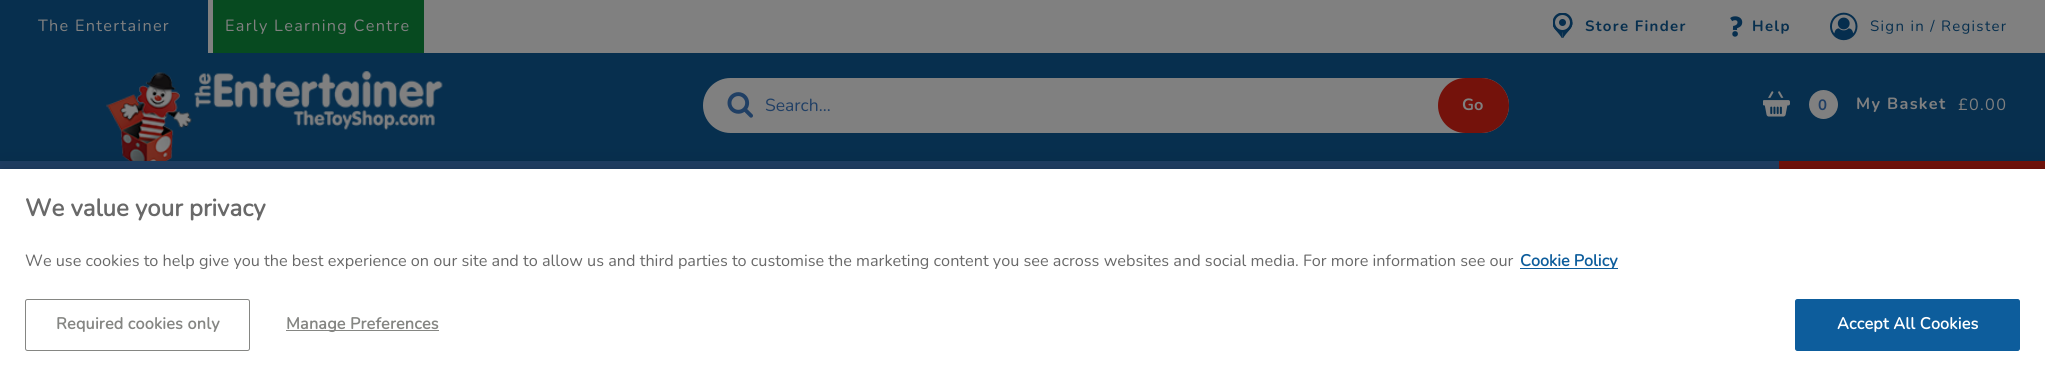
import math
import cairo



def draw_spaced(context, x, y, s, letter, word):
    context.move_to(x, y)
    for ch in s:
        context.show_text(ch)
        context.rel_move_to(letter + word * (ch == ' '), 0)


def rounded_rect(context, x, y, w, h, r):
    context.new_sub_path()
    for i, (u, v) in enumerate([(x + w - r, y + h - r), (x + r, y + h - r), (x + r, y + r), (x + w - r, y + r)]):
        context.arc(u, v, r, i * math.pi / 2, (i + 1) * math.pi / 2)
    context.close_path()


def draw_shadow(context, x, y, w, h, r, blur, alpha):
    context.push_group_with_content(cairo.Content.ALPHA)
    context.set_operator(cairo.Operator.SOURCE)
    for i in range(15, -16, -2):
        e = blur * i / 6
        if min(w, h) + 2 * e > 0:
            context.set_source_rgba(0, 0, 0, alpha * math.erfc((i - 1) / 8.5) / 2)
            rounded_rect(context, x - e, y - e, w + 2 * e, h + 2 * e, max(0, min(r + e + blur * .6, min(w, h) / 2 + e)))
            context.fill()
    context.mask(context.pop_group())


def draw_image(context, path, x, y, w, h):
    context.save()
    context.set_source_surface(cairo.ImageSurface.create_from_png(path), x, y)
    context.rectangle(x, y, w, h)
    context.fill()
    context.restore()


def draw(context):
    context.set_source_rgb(7 / 255, 47 / 255, 78 / 255)
    context.paint()
    context.set_source_rgb(128 / 255, 128 / 255, 128 / 255)
    context.rectangle(208, 0, 5, 53)
    context.fill()
    context.set_source_rgb(7 / 255, 74 / 255, 32 / 255)
    context.rectangle(213, 0, 211, 53)
    context.fill()
    context.set_source_rgb(128 / 255, 128 / 255, 128 / 255)
    context.rectangle(424, 0, 1621, 53)
    context.fill()
    draw_image(context, "images/1.png", 1553, 13, 20, 25)
    draw_image(context, "images/2.png", 1730, 16, 13, 21)
    draw_image(context, "images/3.png", 1830, 12, 28, 29)
    draw_image(context, "images/4.png", 106, 71, 337, 90)
    rounded_rect(context, 703, 78, 806, 55, 27.5)
    context.fill()
    draw_image(context, "images/5.png", 727, 92, 26, 26)
    context.set_source_rgb(116 / 255, 18 / 255, 11 / 255)
    rounded_rect(context, 1438, 78, 71, 55, 27.5)
    context.fill()
    draw_image(context, "images/6.png", 1763, 91, 27, 26)
    context.set_source_rgb(128 / 255, 128 / 255, 128 / 255)
    context.arc(1823.5, 104.5, 14.5, 0, 2 * math.pi)
    context.fill()
    context.set_source_rgb(32 / 255, 63 / 255, 101 / 255)
    context.rectangle(0, 161, 1779, 8)
    context.fill()
    context.set_source_rgb(116 / 255, 18 / 255, 11 / 255)
    context.rectangle(1779, 161, 266, 8)
    context.fill()
    context.set_source_rgb(0, 0, 0)
    draw_shadow(context, 0, 169, 2045, 207, 0, 11, 0.2)
    context.set_source_rgb(1, 1, 1)
    context.rectangle(0, 169, 2045, 207)
    context.fill()
    context.set_source_rgb(13 / 255, 93 / 255, 156 / 255)
    context.rectangle(1520, 268, 98, 1)
    context.fill()
    rounded_rect(context, 25.5, 299.5, 224, 51, 2)
    context.set_source_rgb(133 / 255, 134 / 255, 131 / 255)
    context.set_line_width(1)
    context.stroke()
    context.rectangle(286, 330, 153, 1)
    context.fill()
    context.set_source_rgb(13 / 255, 93 / 255, 156 / 255)
    rounded_rect(context, 1795.5, 299.5, 224, 51, 2)
    context.fill_preserve()
    context.stroke()
    context.select_font_face("Nunito")
    context.set_font_size(16.25)
    context.set_source_rgb(128 / 255, 128 / 255, 128 / 255)
    draw_spaced(context, 38, 31, "The Entertainer", 1.3, 0)
    draw_spaced(context, 225, 31, "Early Learning Centre", 1.3, 0)
    context.select_font_face("Nunito", cairo.FontSlant.NORMAL, cairo.FontWeight.BOLD)
    context.set_font_size(15)
    context.set_source_rgb(7 / 255, 47 / 255, 78 / 255)
    draw_spaced(context, 1585, 31, "Store Finder", 1.3, 0)
    draw_spaced(context, 1752, 31, "Help", 1.3, 0)
    context.select_font_face("Nunito")
    draw_spaced(context, 1870, 31, "Sign in / Register", 1.3, 0)
    context.set_font_size(17.5)
    context.set_source_rgb(32 / 255, 63 / 255, 101 / 255)
    context.move_to(765, 111)
    context.show_text("Search...")
    context.select_font_face("Nunito", cairo.FontSlant.NORMAL, cairo.FontWeight.BOLD)
    context.set_font_size(16.25)
    context.set_source_rgb(128 / 255, 128 / 255, 128 / 255)
    context.move_to(1462, 110)
    context.show_text("Go")
    context.set_font_size(15)
    context.set_source_rgb(32 / 255, 63 / 255, 101 / 255)
    draw_spaced(context, 1818, 110, "0", 1.3, 0)
    context.set_font_size(16.25)
    context.set_source_rgb(128 / 255, 128 / 255, 128 / 255)
    draw_spaced(context, 1856, 109, "My Basket", 1.3, 0)
    context.select_font_face("Nunito")
    draw_spaced(context, 1958, 110, "£0.00", 1.3, 0)
    context.select_font_face("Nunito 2", cairo.FontSlant.NORMAL, cairo.FontWeight.BOLD)
    context.set_font_size(24)
    context.set_source_rgb(105 / 255, 105 / 255, 105 / 255)
    context.move_to(25, 216)
    context.show_text("We value your privacy")
    context.select_font_face("Nunito")
    context.set_font_size(16.25)
    context.move_to(25, 266)
    context.show_text("We use cookies to help give you the best experience on our site and to allow us and third parties to customise the marketing content you see across websites and social media. For more information see our")
    context.select_font_face("Nunito 2", cairo.FontSlant.NORMAL, cairo.FontWeight.BOLD)
    context.set_source_rgb(13 / 255, 93 / 255, 156 / 255)
    context.move_to(1520, 266)
    context.show_text("Cookie Policy")
    context.set_source_rgb(133 / 255, 134 / 255, 131 / 255)
    draw_spaced(context, 56, 329, "Required cookies only", 0.2, 0)
    draw_spaced(context, 286, 329, "Manage Preferences", 0.2, 0)
    context.set_source_rgb(1, 1, 1)
    draw_spaced(context, 1837, 329, "Accept All Cookies", 0.2, 0)


surface = cairo.ImageSurface(cairo.Format.RGB24, 2045, 376)
context = cairo.Context(surface)
options = cairo.FontOptions()
options.set_hint_metrics(cairo.HintMetrics.OFF)
options.set_hint_style(cairo.HintStyle.NONE)
context.set_font_options(options)
context.set_miter_limit(4)
draw(context)
surface.write_to_png("out.png")
